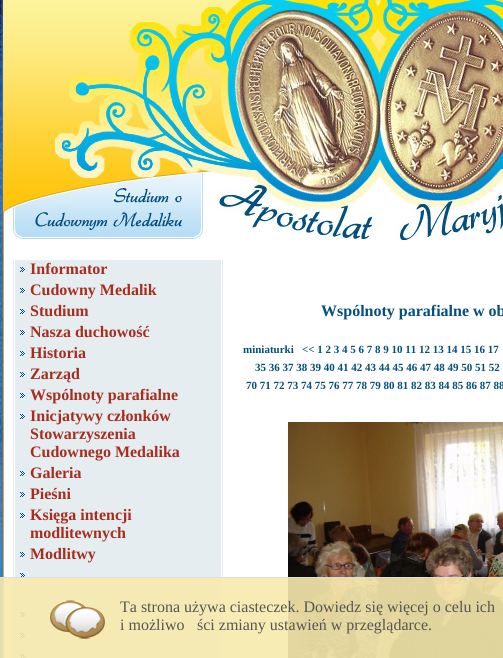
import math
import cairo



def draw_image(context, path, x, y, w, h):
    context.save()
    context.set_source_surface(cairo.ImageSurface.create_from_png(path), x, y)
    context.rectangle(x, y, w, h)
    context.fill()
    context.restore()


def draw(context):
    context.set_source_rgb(1 / 255, 130 / 255, 205 / 255)
    context.paint()
    draw_image(context, "images/1.png", 0, 240, 3, 349)
    draw_image(context, "images/2.png", 0, 0, 203, 173)
    draw_image(context, "images/3.png", 203, 0, 176, 173)
    draw_image(context, "images/4.png", 379, 0, 124, 173)
    draw_image(context, "images/5.png", 0, 173, 203, 67)
    draw_image(context, "images/6.png", 203, 173, 176, 67)
    draw_image(context, "images/7.png", 379, 173, 124, 67)
    draw_image(context, "images/8.png", 0, 240, 503, 418)
    draw_image(context, "images/9.png", 13, 260, 210, 398)
    draw_image(context, "images/10.png", 20, 267, 5, 5)
    draw_image(context, "images/10.png", 20, 288, 5, 5)
    draw_image(context, "images/10.png", 20, 309, 5, 5)
    draw_image(context, "images/10.png", 20, 330, 5, 5)
    draw_image(context, "images/10.png", 20, 351, 5, 5)
    draw_image(context, "images/10.png", 20, 372, 5, 5)
    draw_image(context, "images/10.png", 20, 393, 5, 5)
    draw_image(context, "images/10.png", 20, 414, 5, 5)
    draw_image(context, "images/10.png", 20, 471, 5, 5)
    draw_image(context, "images/10.png", 20, 492, 5, 5)
    draw_image(context, "images/10.png", 20, 513, 5, 5)
    draw_image(context, "images/10.png", 20, 552, 5, 5)
    draw_image(context, "images/11.png", 20, 573, 5, 4)
    draw_image(context, "images/10.png", 20, 612, 5, 5)
    draw_image(context, "images/10.png", 20, 633, 5, 5)
    draw_image(context, "images/11.png", 20, 654, 5, 4)
    draw_image(context, "images/12.png", 288, 422, 215, 236)
    context.set_source_rgba(247 / 255, 234 / 255, 173 / 255, 0.9)
    context.rectangle(0, 578, 503, 80)
    context.fill()
    context.set_source_rgb(221 / 255, 221 / 255, 221 / 255)
    context.rectangle(0, 577, 503, 1)
    context.fill()
    draw_image(context, "images/13.png", 50, 600, 55, 39)
    context.select_font_face("Liberation Serif", cairo.FontSlant.NORMAL, cairo.FontWeight.BOLD)
    context.set_font_size(16)
    context.set_source_rgb(167 / 255, 46 / 255, 29 / 255)
    context.move_to(30, 274)
    context.show_text("Informator")
    context.move_to(30, 295)
    context.show_text("Cudowny Medalik")
    context.move_to(30, 316)
    context.show_text("Studium")
    context.move_to(30, 337)
    context.show_text("Nasza duchowość")
    context.move_to(30, 358)
    context.show_text("Historia")
    context.move_to(30, 379)
    context.show_text("Zarząd")
    context.move_to(30, 400)
    context.show_text("Wspólnoty parafialne")
    context.move_to(30, 421)
    context.show_text("Inicjatywy członków")
    context.move_to(30, 439)
    context.show_text("Stowarzyszenia")
    context.move_to(30, 457)
    context.show_text("Cudownego Medalika")
    context.move_to(30, 478)
    context.show_text("Galeria")
    context.move_to(30, 499)
    context.show_text("Pieśni")
    context.move_to(30, 520)
    context.show_text("Księga intencji")
    context.move_to(30, 538)
    context.show_text("modlitewnych")
    context.move_to(30, 559)
    context.show_text("Modlitwy")
    context.set_source_rgb(3 / 255, 79 / 255, 126 / 255)
    context.move_to(321, 316)
    context.show_text("Wspólnoty parafialne w ob")
    context.set_font_size(11)
    context.move_to(243, 353)
    context.show_text("miniaturki")
    context.move_to(302, 353)
    context.show_text("<< 1 2 3 4 5 6 7 8 9 10 11 12 13 14 15 16 17")
    context.move_to(255, 371)
    context.show_text("35 36 37 38 39 40 41 42 43 44 45 46 47 48 49 50 51 52")
    context.move_to(246, 389)
    context.show_text("70 71 72 73 74 75 76 77 78 79 80 81 82 83 84 85 86 87 88")
    context.select_font_face("Liberation Serif")
    context.set_font_size(16)
    context.set_source_rgb(85 / 255, 85 / 255, 85 / 255)
    context.move_to(120, 612)
    context.show_text("Ta strona używa ciasteczek. Dowiedz się więcej o celu ich")
    context.move_to(120, 630)
    context.show_text("i możliwo")
    context.move_to(197, 630)
    context.show_text("ści zmiany ustawień w przeglądarce.")


surface = cairo.ImageSurface(cairo.Format.RGB24, 503, 658)
context = cairo.Context(surface)
options = cairo.FontOptions()
options.set_hint_metrics(cairo.HintMetrics.OFF)
options.set_hint_style(cairo.HintStyle.NONE)
context.set_font_options(options)
context.set_miter_limit(4)
draw(context)
surface.write_to_png("out.png")
